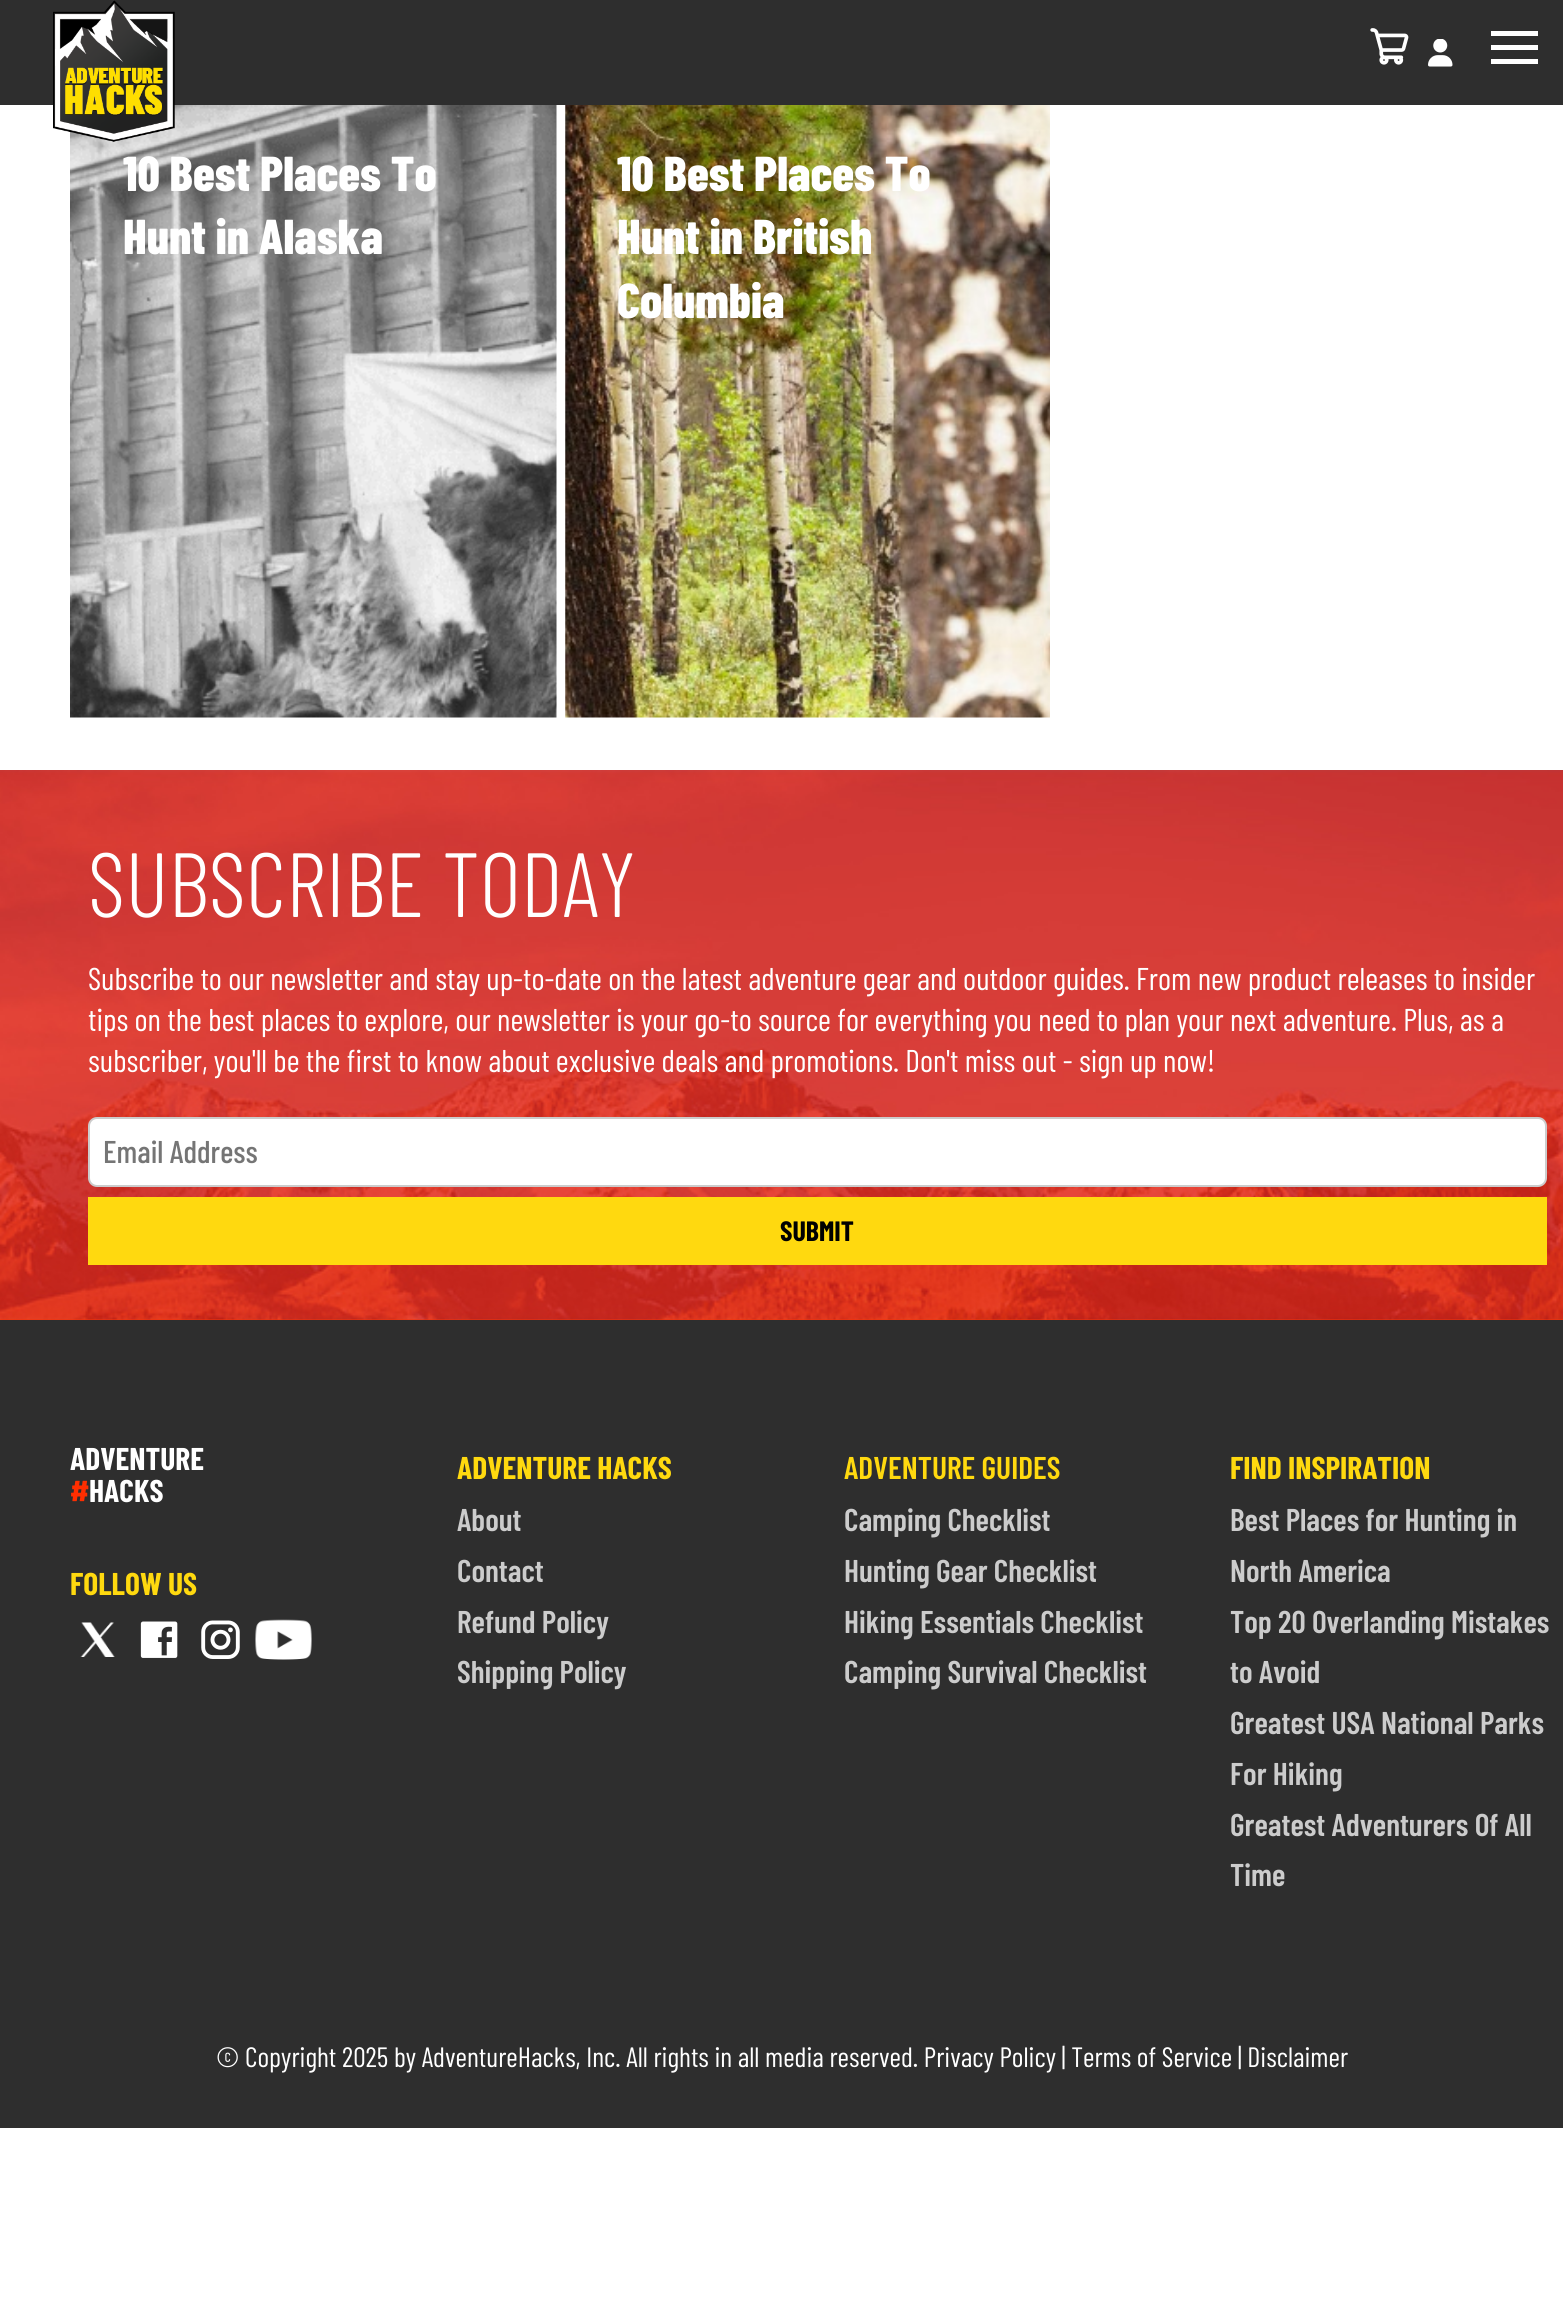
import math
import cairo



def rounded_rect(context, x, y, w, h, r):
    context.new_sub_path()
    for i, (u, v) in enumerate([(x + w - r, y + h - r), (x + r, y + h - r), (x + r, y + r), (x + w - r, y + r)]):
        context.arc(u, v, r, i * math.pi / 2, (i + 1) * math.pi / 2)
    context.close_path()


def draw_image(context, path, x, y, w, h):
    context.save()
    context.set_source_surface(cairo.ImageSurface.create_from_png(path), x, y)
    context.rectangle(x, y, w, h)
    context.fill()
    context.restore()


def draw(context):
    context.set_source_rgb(1, 1, 1)
    context.paint()
    context.set_source_rgb(46 / 255, 46 / 255, 46 / 255)
    context.rectangle(0, 0, 1563, 105)
    context.fill()
    draw_image(context, "images/4.png", 70, 105, 487, 613)
    draw_image(context, "images/1.png", 53, 0, 122, 142)
    draw_image(context, "images/2.png", 1370, 28, 39, 37)
    draw_image(context, "images/3.png", 1428, 39, 25, 28)
    context.set_source_rgb(1, 1, 1)
    context.rectangle(1491, 31, 47, 5)
    context.fill()
    context.rectangle(1491, 45, 47, 5)
    context.fill()
    context.rectangle(1491, 59, 47, 5)
    context.fill()
    draw_image(context, "images/5.png", 565, 105, 485, 613)
    context.set_source_rgb(246 / 255, 53 / 255, 9 / 255)
    context.rectangle(0, 1319, 1563, 1)
    context.fill()
    draw_image(context, "images/6.png", 0, 770, 1563, 550)
    context.set_source_rgb(1, 1, 1)
    rounded_rect(context, 89, 1118, 1457, 68, 8)
    context.fill_preserve()
    context.set_source_rgb(204 / 255, 204 / 255, 204 / 255)
    context.stroke()
    context.set_source_rgb(1, 217 / 255, 15 / 255)
    context.rectangle(88, 1197, 1459, 68)
    context.fill()
    context.set_source_rgb(46 / 255, 46 / 255, 46 / 255)
    context.rectangle(0, 1320, 1563, 808)
    context.fill()
    draw_image(context, "images/7.png", 80, 1622, 35, 35)
    draw_image(context, "images/8.png", 140, 1621, 38, 37)
    draw_image(context, "images/9.png", 201, 1620, 39, 39)
    draw_image(context, "images/10.png", 255, 1619, 57, 41)
    context.select_font_face("Barlow Condensed ExtraBold")
    context.set_font_size(49)
    context.set_source_rgb(1, 1, 1)
    context.move_to(123, 191)
    context.show_text("10 Best Places To")
    context.move_to(123, 254)
    context.show_text("Hunt in Alaska")
    context.move_to(617, 191)
    context.show_text("10 Best Places To")
    context.move_to(617, 254)
    context.show_text("Hunt in British")
    context.move_to(617, 318)
    context.show_text("Columbia")
    context.select_font_face("Barlow Condensed Light")
    context.set_font_size(91)
    context.move_to(88, 917)
    context.show_text("SUBSCRIBE TODAY")
    context.select_font_face("Barlow Condensed")
    context.set_font_size(31.5)
    context.move_to(88, 990)
    context.show_text("Subscribe to our newsletter and stay up-to-date on the latest adventure gear and outdoor guides. From new product releases to insider")
    context.move_to(88, 1031)
    context.show_text("tips on the best places to explore, our newsletter is your go-to source for everything you need to plan your next adventure. Plus, as a")
    context.move_to(88, 1072)
    context.show_text("subscriber, you'll be the first to know about exclusive deals and promotions. Don't miss out - sign up now!")
    context.select_font_face("Barlow Condensed Medium")
    context.set_source_rgb(117 / 255, 117 / 255, 117 / 255)
    context.move_to(103, 1163)
    context.show_text("Email Address")
    context.select_font_face("Barlow Condensed", cairo.FontSlant.NORMAL, cairo.FontWeight.BOLD)
    context.set_font_size(28)
    context.set_source_rgb(0, 0, 0)
    context.move_to(780, 1241)
    context.show_text("SUBMIT")
    context.set_font_size(31.5)
    context.set_source_rgb(1, 1, 1)
    context.move_to(70, 1470)
    context.show_text("ADVENTURE")
    context.set_source_rgb(1, 46 / 255, 0)
    context.move_to(70, 1502)
    context.show_text("#")
    context.set_source_rgb(1, 1, 1)
    context.move_to(89, 1502)
    context.show_text("HACKS")
    context.set_source_rgb(1, 217 / 255, 15 / 255)
    context.move_to(70, 1595)
    context.show_text("FOLLOW US")
    context.move_to(457, 1479)
    context.show_text("ADVENTURE HACKS")
    context.select_font_face("Barlow Condensed SemiBold")
    context.set_source_rgb(204 / 255, 204 / 255, 204 / 255)
    context.move_to(457, 1531)
    context.show_text("About")
    context.move_to(457, 1582)
    context.show_text("Contact")
    context.move_to(457, 1633)
    context.show_text("Refund Policy")
    context.move_to(457, 1683)
    context.show_text("Shipping Policy")
    context.set_source_rgb(1, 217 / 255, 15 / 255)
    context.move_to(844, 1479)
    context.show_text("ADVENTURE GUIDES")
    context.set_source_rgb(204 / 255, 204 / 255, 204 / 255)
    context.move_to(844, 1531)
    context.show_text("Camping Checklist")
    context.move_to(844, 1582)
    context.show_text("Hunting Gear Checklist")
    context.move_to(844, 1633)
    context.show_text("Hiking Essentials Checklist")
    context.move_to(844, 1683)
    context.show_text("Camping Survival Checklist")
    context.select_font_face("Barlow Condensed", cairo.FontSlant.NORMAL, cairo.FontWeight.BOLD)
    context.set_source_rgb(1, 217 / 255, 15 / 255)
    context.move_to(1230, 1479)
    context.show_text("FIND INSPIRATION")
    context.select_font_face("Barlow Condensed SemiBold")
    context.set_source_rgb(204 / 255, 204 / 255, 204 / 255)
    context.move_to(1230, 1531)
    context.show_text("Best Places for Hunting in")
    context.move_to(1230, 1582)
    context.show_text("North America")
    context.move_to(1230, 1633)
    context.show_text("Top 20 Overlanding Mistakes")
    context.move_to(1230, 1683)
    context.show_text("to Avoid")
    context.move_to(1230, 1734)
    context.show_text("Greatest USA National Parks")
    context.move_to(1230, 1785)
    context.show_text("For Hiking")
    context.move_to(1230, 1836)
    context.show_text("Greatest Adventurers Of All")
    context.move_to(1230, 1886)
    context.show_text("Time")
    context.select_font_face("Barlow Condensed")
    context.set_font_size(28)
    context.set_source_rgb(1, 1, 1)
    context.move_to(216, 2067)
    context.show_text("© Copyright 2025 by AdventureHacks, Inc. All rights in all media reserved. Privacy Policy | Terms of Service | Disclaimer")


surface = cairo.ImageSurface(cairo.Format.RGB24, 1563, 2306)
context = cairo.Context(surface)
options = cairo.FontOptions()
options.set_hint_metrics(cairo.HintMetrics.OFF)
options.set_hint_style(cairo.HintStyle.NONE)
context.set_font_options(options)
context.set_miter_limit(4)
draw(context)
surface.write_to_png("out.png")
